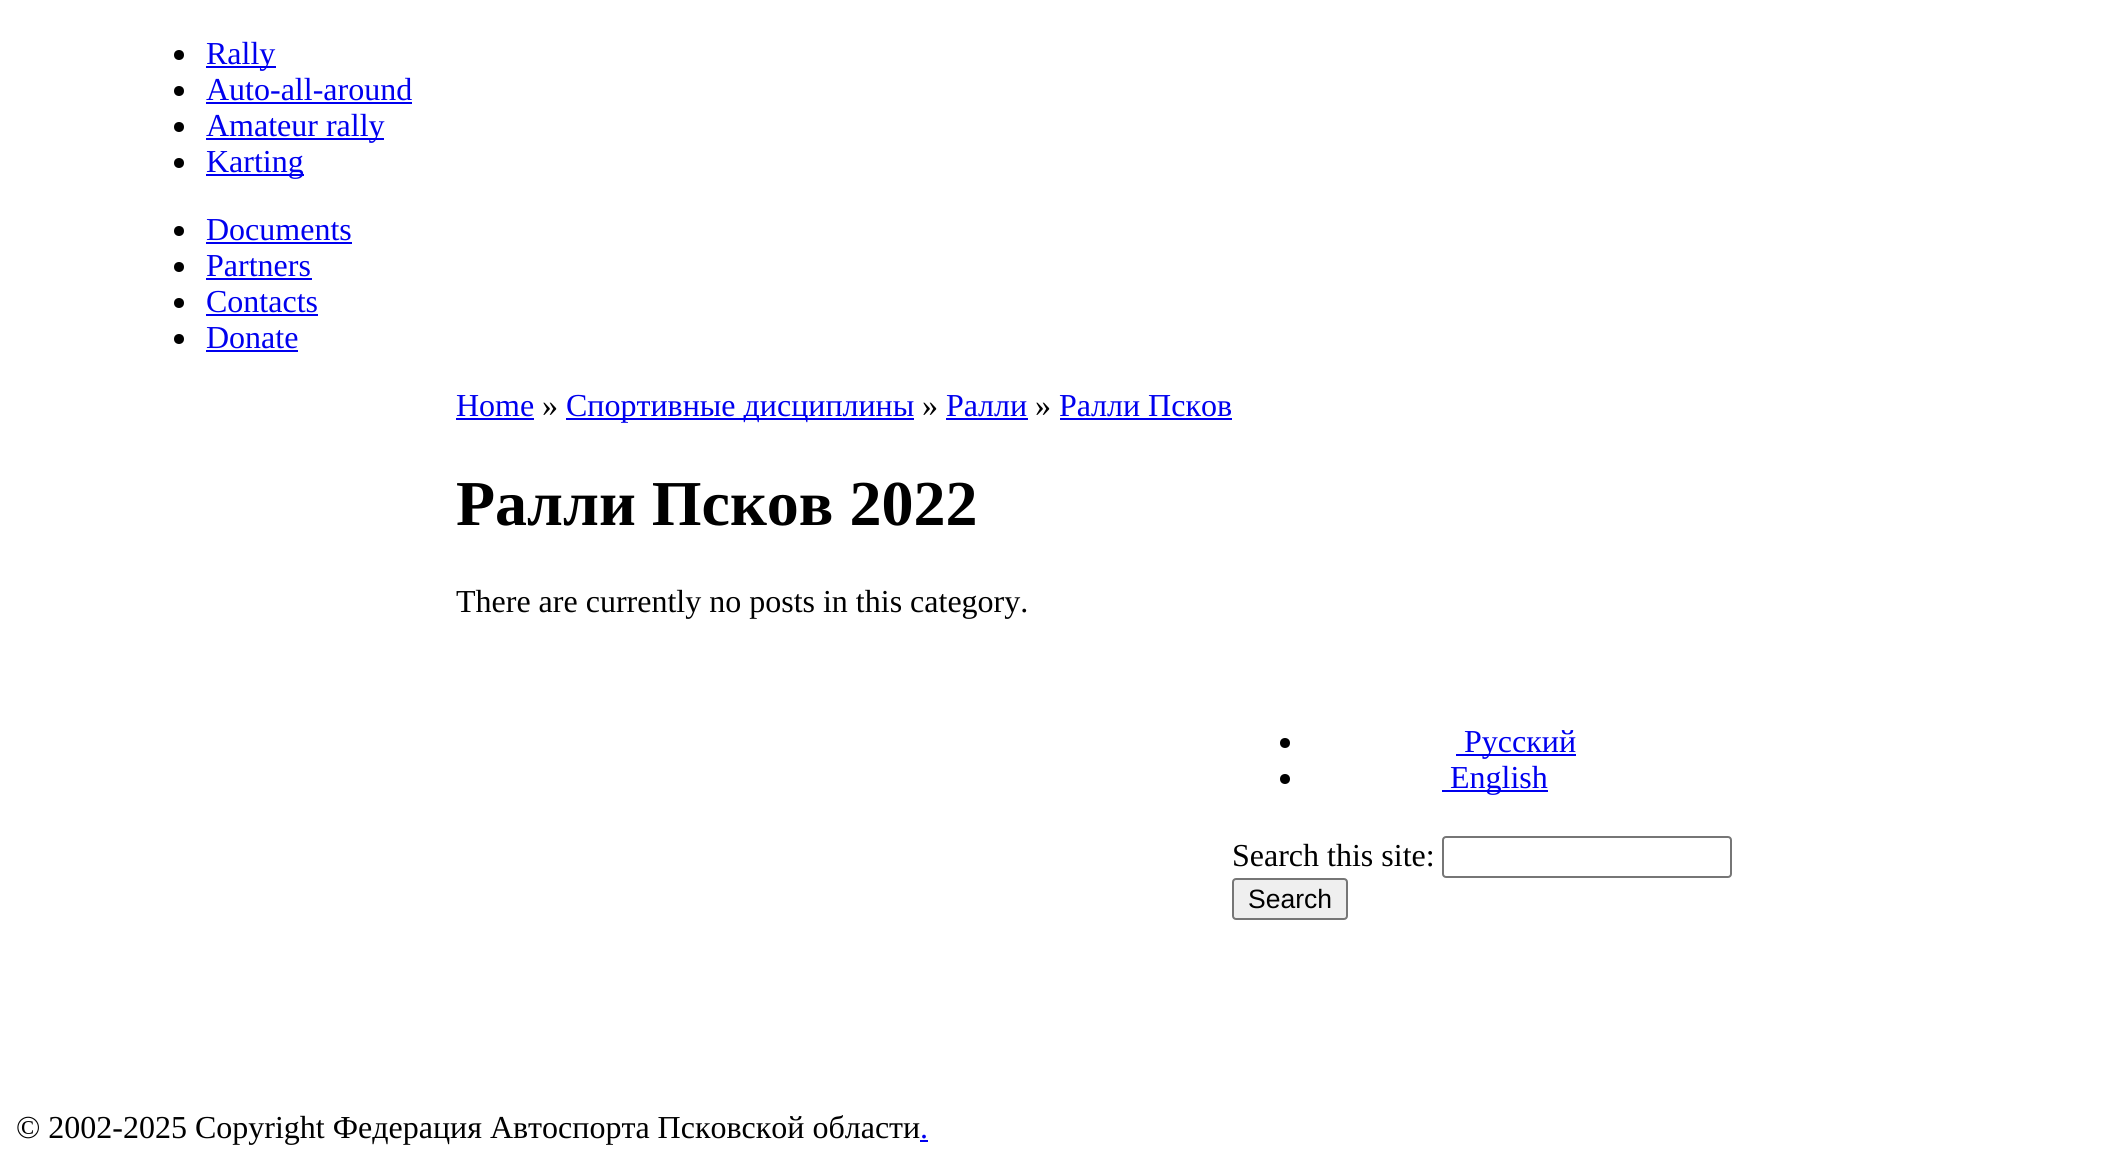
import math
import cairo



def rounded_rect(context, x, y, w, h, r):
    context.new_sub_path()
    for i, (u, v) in enumerate([(x + w - r, y + h - r), (x + r, y + h - r), (x + r, y + r), (x + w - r, y + r)]):
        context.arc(u, v, r, i * math.pi / 2, (i + 1) * math.pi / 2)
    context.close_path()


def draw(context):
    context.set_source_rgb(1, 1, 1)
    context.paint()
    context.set_source_rgb(0, 0, 0)
    context.arc(179, 55, 5, 0, 2 * math.pi)
    context.fill()
    context.set_source_rgb(0, 0, 238 / 255)
    context.rectangle(206, 66, 70, 2)
    context.fill()
    context.set_source_rgb(0, 0, 0)
    context.arc(179, 91, 5, 0, 2 * math.pi)
    context.fill()
    context.set_source_rgb(0, 0, 238 / 255)
    context.rectangle(206, 102, 206, 2)
    context.fill()
    context.set_source_rgb(0, 0, 0)
    context.arc(179, 127, 5, 0, 2 * math.pi)
    context.fill()
    context.set_source_rgb(0, 0, 238 / 255)
    context.rectangle(206, 138, 178, 2)
    context.fill()
    context.set_source_rgb(0, 0, 0)
    context.arc(179, 163, 5, 0, 2 * math.pi)
    context.fill()
    context.set_source_rgb(0, 0, 238 / 255)
    context.rectangle(206, 174, 98, 2)
    context.fill()
    context.set_source_rgb(0, 0, 0)
    context.arc(179, 231, 5, 0, 2 * math.pi)
    context.fill()
    context.set_source_rgb(0, 0, 238 / 255)
    context.rectangle(206, 242, 146, 2)
    context.fill()
    context.set_source_rgb(0, 0, 0)
    context.arc(179, 267, 5, 0, 2 * math.pi)
    context.fill()
    context.set_source_rgb(0, 0, 238 / 255)
    context.rectangle(206, 278, 106, 2)
    context.fill()
    context.set_source_rgb(0, 0, 0)
    context.arc(179, 303, 5, 0, 2 * math.pi)
    context.fill()
    context.set_source_rgb(0, 0, 238 / 255)
    context.rectangle(206, 314, 112, 2)
    context.fill()
    context.set_source_rgb(0, 0, 0)
    context.arc(179, 339, 5, 0, 2 * math.pi)
    context.fill()
    context.set_source_rgb(0, 0, 238 / 255)
    context.rectangle(206, 350, 92, 2)
    context.fill()
    context.rectangle(456, 418, 78, 2)
    context.fill()
    context.rectangle(566, 418, 348, 2)
    context.fill()
    context.rectangle(946, 418, 82, 2)
    context.fill()
    context.rectangle(1060, 418, 172, 2)
    context.fill()
    context.set_source_rgb(0, 0, 0)
    context.arc(1285, 743, 5, 0, 2 * math.pi)
    context.fill()
    context.set_source_rgb(0, 0, 238 / 255)
    context.rectangle(1456, 754, 120, 2)
    context.fill()
    context.set_source_rgb(0, 0, 0)
    context.arc(1285, 779, 5, 0, 2 * math.pi)
    context.fill()
    context.set_source_rgb(0, 0, 238 / 255)
    context.rectangle(1442, 790, 106, 2)
    context.fill()
    rounded_rect(context, 1443, 837, 288, 40, 3)
    context.set_source_rgb(118 / 255, 118 / 255, 118 / 255)
    context.stroke()
    context.set_source_rgb(239 / 255, 239 / 255, 239 / 255)
    rounded_rect(context, 1233, 879, 114, 40, 3)
    context.fill_preserve()
    context.set_source_rgb(118 / 255, 118 / 255, 118 / 255)
    context.stroke()
    context.set_source_rgb(0, 0, 238 / 255)
    context.rectangle(920, 1140, 8, 2)
    context.fill()
    context.select_font_face("Liberation Serif")
    context.set_font_size(32)
    context.move_to(206, 64)
    context.show_text("Rally")
    context.move_to(206, 100)
    context.show_text("Auto-all-around")
    context.move_to(206, 136)
    context.show_text("Amateur rally")
    context.move_to(206, 172)
    context.show_text("Karting")
    context.move_to(206, 240)
    context.show_text("Documents")
    context.move_to(206, 276)
    context.show_text("Partners")
    context.move_to(206, 312)
    context.show_text("Contacts")
    context.move_to(206, 348)
    context.show_text("Donate")
    context.move_to(456, 416)
    context.show_text("Home")
    context.set_source_rgb(0, 0, 0)
    context.move_to(542, 416)
    context.show_text("»")
    context.set_source_rgb(0, 0, 238 / 255)
    context.move_to(566, 416)
    context.show_text("Спортивные дисциплины")
    context.set_source_rgb(0, 0, 0)
    context.move_to(922, 416)
    context.show_text("»")
    context.set_source_rgb(0, 0, 238 / 255)
    context.move_to(946, 416)
    context.show_text("Ралли")
    context.set_source_rgb(0, 0, 0)
    context.move_to(1035, 416)
    context.show_text("»")
    context.set_source_rgb(0, 0, 238 / 255)
    context.move_to(1059, 416)
    context.show_text("Ралли Псков")
    context.select_font_face("Liberation Serif", cairo.FontSlant.NORMAL, cairo.FontWeight.BOLD)
    context.set_font_size(64)
    context.set_source_rgb(0, 0, 0)
    context.move_to(456, 525)
    context.show_text("Ралли Псков 2022")
    context.select_font_face("Liberation Serif")
    context.set_font_size(32)
    context.move_to(456, 612)
    context.show_text("There are currently no posts in this category.")
    context.set_source_rgb(0, 0, 238 / 255)
    context.move_to(1464, 752)
    context.show_text("Русский")
    context.move_to(1450, 788)
    context.show_text("English")
    context.set_source_rgb(0, 0, 0)
    context.move_to(1232, 866)
    context.show_text("Search this site:")
    context.select_font_face("Liberation Sans")
    context.set_font_size(26.5)
    context.move_to(1248, 908)
    context.show_text("Search")
    context.select_font_face("Liberation Serif")
    context.set_font_size(32)
    context.move_to(16, 1138)
    context.show_text("© 2002-2025 Copyright Федерация Автоспорта Псковской области")
    context.set_source_rgb(0, 0, 238 / 255)
    context.move_to(920, 1138)
    context.show_text(".")


surface = cairo.ImageSurface(cairo.Format.RGB24, 2111, 1161)
context = cairo.Context(surface)
options = cairo.FontOptions()
options.set_hint_metrics(cairo.HintMetrics.OFF)
options.set_hint_style(cairo.HintStyle.NONE)
context.set_font_options(options)
context.set_miter_limit(4)
draw(context)
surface.write_to_png("out.png")
